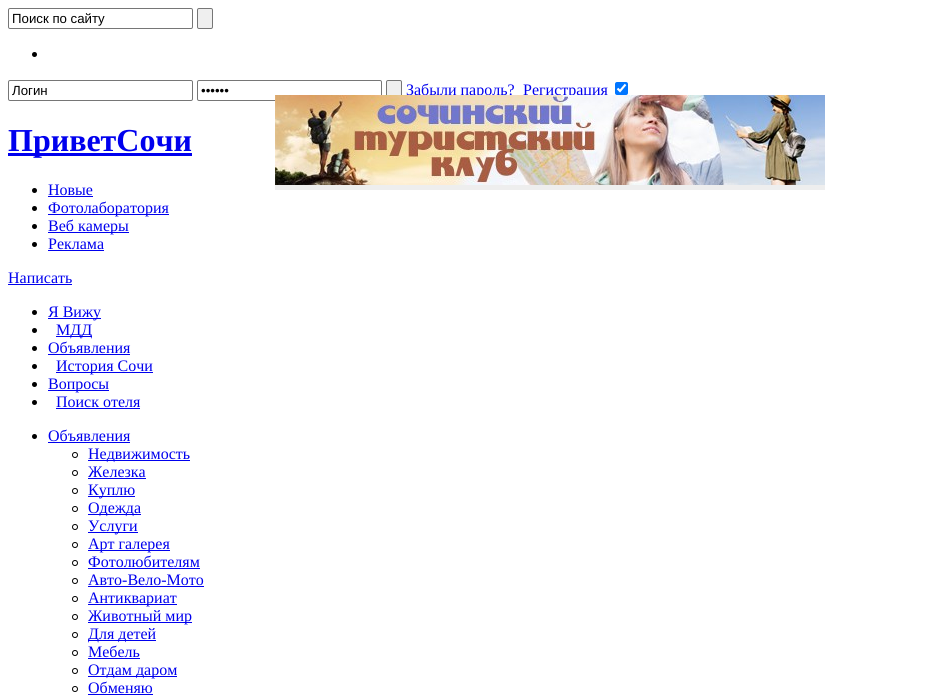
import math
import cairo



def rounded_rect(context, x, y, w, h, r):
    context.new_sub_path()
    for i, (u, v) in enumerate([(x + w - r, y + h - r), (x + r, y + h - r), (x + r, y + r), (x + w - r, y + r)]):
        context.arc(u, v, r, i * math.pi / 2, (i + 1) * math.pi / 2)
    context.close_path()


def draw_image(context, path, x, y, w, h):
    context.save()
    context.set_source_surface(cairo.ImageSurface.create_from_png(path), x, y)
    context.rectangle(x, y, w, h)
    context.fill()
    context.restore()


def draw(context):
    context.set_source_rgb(1, 1, 1)
    context.paint()
    rounded_rect(context, 8.5, 8.5, 184, 20, 1.5)
    context.set_source_rgb(118 / 255, 118 / 255, 118 / 255)
    context.set_line_width(1)
    context.stroke()
    context.set_source_rgb(239 / 255, 239 / 255, 239 / 255)
    rounded_rect(context, 197.5, 8.5, 15, 20, 1.5)
    context.fill_preserve()
    context.set_source_rgb(118 / 255, 118 / 255, 118 / 255)
    context.stroke()
    context.set_source_rgb(0, 0, 0)
    context.arc(34.5, 54.5, 2.5, 0, 2 * math.pi)
    context.fill()
    rounded_rect(context, 8.5, 80.5, 184, 20, 1.5)
    context.set_source_rgb(118 / 255, 118 / 255, 118 / 255)
    context.stroke()
    rounded_rect(context, 197.5, 80.5, 184, 20, 1.5)
    context.stroke()
    context.set_source_rgb(239 / 255, 239 / 255, 239 / 255)
    rounded_rect(context, 386.5, 80.5, 15, 20, 1.5)
    context.fill_preserve()
    context.set_source_rgb(118 / 255, 118 / 255, 118 / 255)
    context.stroke()
    context.set_source_rgb(0, 117 / 255, 1)
    rounded_rect(context, 615, 82, 13, 13, 2)
    context.fill()
    context.new_path()
    context.move_to(617.5, 88.5)
    context.line_to(620, 91)
    context.line_to(625.5, 84.5)
    context.set_source_rgb(1, 1, 1)
    context.set_line_width(2.1)
    context.stroke()
    context.set_source_rgb(0, 0, 238 / 255)
    context.rectangle(8, 153, 184, 3)
    context.fill()
    context.set_source_rgb(238 / 255, 238 / 255, 238 / 255)
    context.rectangle(275, 185, 550, 5)
    context.fill()
    context.set_source_rgb(0, 0, 0)
    context.arc(34.5, 190.5, 2.5, 0, 2 * math.pi)
    context.fill()
    context.set_source_rgb(0, 0, 238 / 255)
    context.rectangle(48, 196, 45, 1)
    context.fill()
    context.set_source_rgb(0, 0, 0)
    context.arc(34.5, 208.5, 2.5, 0, 2 * math.pi)
    context.fill()
    context.set_source_rgb(0, 0, 238 / 255)
    context.rectangle(48, 214, 121, 1)
    context.fill()
    context.set_source_rgb(0, 0, 0)
    context.arc(34.5, 226.5, 2.5, 0, 2 * math.pi)
    context.fill()
    context.set_source_rgb(0, 0, 238 / 255)
    context.rectangle(48, 232, 81, 1)
    context.fill()
    context.set_source_rgb(0, 0, 0)
    context.arc(34.5, 244.5, 2.5, 0, 2 * math.pi)
    context.fill()
    context.set_source_rgb(0, 0, 238 / 255)
    context.rectangle(48, 250, 56, 1)
    context.fill()
    context.rectangle(8, 284, 64, 1)
    context.fill()
    context.set_source_rgb(0, 0, 0)
    context.arc(34.5, 312.5, 2.5, 0, 2 * math.pi)
    context.fill()
    context.set_source_rgb(0, 0, 238 / 255)
    context.rectangle(48, 318, 53, 1)
    context.fill()
    context.set_source_rgb(0, 0, 0)
    context.arc(34.5, 330.5, 2.5, 0, 2 * math.pi)
    context.fill()
    context.set_source_rgb(0, 0, 238 / 255)
    context.rectangle(56, 336, 36, 1)
    context.fill()
    context.set_source_rgb(0, 0, 0)
    context.arc(34.5, 348.5, 2.5, 0, 2 * math.pi)
    context.fill()
    context.set_source_rgb(0, 0, 238 / 255)
    context.rectangle(48, 354, 82, 1)
    context.fill()
    context.set_source_rgb(0, 0, 0)
    context.arc(34.5, 366.5, 2.5, 0, 2 * math.pi)
    context.fill()
    context.set_source_rgb(0, 0, 238 / 255)
    context.rectangle(56, 372, 97, 1)
    context.fill()
    context.set_source_rgb(0, 0, 0)
    context.arc(34.5, 384.5, 2.5, 0, 2 * math.pi)
    context.fill()
    context.set_source_rgb(0, 0, 238 / 255)
    context.rectangle(48, 390, 61, 1)
    context.fill()
    context.set_source_rgb(0, 0, 0)
    context.arc(34.5, 402.5, 2.5, 0, 2 * math.pi)
    context.fill()
    context.set_source_rgb(0, 0, 238 / 255)
    context.rectangle(56, 408, 84, 1)
    context.fill()
    context.set_source_rgb(0, 0, 0)
    context.arc(34.5, 436.5, 2.5, 0, 2 * math.pi)
    context.fill()
    context.set_source_rgb(0, 0, 238 / 255)
    context.rectangle(48, 442, 82, 1)
    context.fill()
    context.arc(75, 455, 2.5, 0, 2 * math.pi)
    context.set_source_rgb(0, 0, 0)
    context.set_line_width(1)
    context.stroke()
    context.set_source_rgb(0, 0, 238 / 255)
    context.rectangle(88, 460, 102, 1)
    context.fill()
    context.arc(75, 473, 2.5, 0, 2 * math.pi)
    context.set_source_rgb(0, 0, 0)
    context.stroke()
    context.set_source_rgb(0, 0, 238 / 255)
    context.rectangle(88, 478, 58, 1)
    context.fill()
    context.arc(75, 491, 2.5, 0, 2 * math.pi)
    context.set_source_rgb(0, 0, 0)
    context.stroke()
    context.set_source_rgb(0, 0, 238 / 255)
    context.rectangle(88, 496, 47, 1)
    context.fill()
    context.arc(75, 509, 2.5, 0, 2 * math.pi)
    context.set_source_rgb(0, 0, 0)
    context.stroke()
    context.set_source_rgb(0, 0, 238 / 255)
    context.rectangle(88, 514, 53, 1)
    context.fill()
    context.arc(75, 527, 2.5, 0, 2 * math.pi)
    context.set_source_rgb(0, 0, 0)
    context.stroke()
    context.set_source_rgb(0, 0, 238 / 255)
    context.rectangle(88, 532, 50, 1)
    context.fill()
    context.arc(75, 545, 2.5, 0, 2 * math.pi)
    context.set_source_rgb(0, 0, 0)
    context.stroke()
    context.set_source_rgb(0, 0, 238 / 255)
    context.rectangle(88, 550, 82, 1)
    context.fill()
    context.arc(75, 563, 2.5, 0, 2 * math.pi)
    context.set_source_rgb(0, 0, 0)
    context.stroke()
    context.set_source_rgb(0, 0, 238 / 255)
    context.rectangle(88, 568, 112, 1)
    context.fill()
    context.arc(75, 581, 2.5, 0, 2 * math.pi)
    context.set_source_rgb(0, 0, 0)
    context.stroke()
    context.set_source_rgb(0, 0, 238 / 255)
    context.rectangle(88, 586, 116, 1)
    context.fill()
    context.arc(75, 599, 2.5, 0, 2 * math.pi)
    context.set_source_rgb(0, 0, 0)
    context.stroke()
    context.set_source_rgb(0, 0, 238 / 255)
    context.rectangle(88, 604, 89, 1)
    context.fill()
    context.arc(75, 617, 2.5, 0, 2 * math.pi)
    context.set_source_rgb(0, 0, 0)
    context.stroke()
    context.set_source_rgb(0, 0, 238 / 255)
    context.rectangle(88, 622, 104, 1)
    context.fill()
    context.arc(75, 635, 2.5, 0, 2 * math.pi)
    context.set_source_rgb(0, 0, 0)
    context.stroke()
    context.set_source_rgb(0, 0, 238 / 255)
    context.rectangle(88, 640, 68, 1)
    context.fill()
    context.arc(75, 653, 2.5, 0, 2 * math.pi)
    context.set_source_rgb(0, 0, 0)
    context.stroke()
    context.set_source_rgb(0, 0, 238 / 255)
    context.rectangle(88, 658, 52, 1)
    context.fill()
    context.arc(75, 671, 2.5, 0, 2 * math.pi)
    context.set_source_rgb(0, 0, 0)
    context.stroke()
    context.set_source_rgb(0, 0, 238 / 255)
    context.rectangle(88, 676, 89, 1)
    context.fill()
    context.arc(75, 689, 2.5, 0, 2 * math.pi)
    context.set_source_rgb(0, 0, 0)
    context.stroke()
    context.set_source_rgb(0, 0, 238 / 255)
    context.rectangle(88, 694, 65, 1)
    context.fill()
    context.select_font_face("Liberation Sans")
    context.set_font_size(13.25)
    context.set_source_rgb(0, 0, 0)
    context.move_to(12, 23)
    context.show_text("Поиск по сайту")
    context.move_to(12, 95)
    context.show_text("Логин")
    context.move_to(201, 95)
    context.show_text("••••••")
    context.select_font_face("Liberation Serif")
    context.set_font_size(16)
    context.set_source_rgb(0, 0, 238 / 255)
    context.move_to(406, 95)
    context.show_text("Забыли пароль?")
    context.move_to(523, 95)
    context.show_text("Регистрация")
    context.select_font_face("Liberation Serif", cairo.FontSlant.NORMAL, cairo.FontWeight.BOLD)
    context.set_font_size(32)
    context.move_to(8, 151)
    context.show_text("ПриветСочи")
    draw_image(context, "images/1.png", 275, 95, 550, 90)
    context.select_font_face("Liberation Serif")
    context.set_font_size(16)
    context.move_to(48, 195)
    context.show_text("Новые")
    context.move_to(48, 213)
    context.show_text("Фотолаборатория")
    context.move_to(48, 231)
    context.show_text("Веб камеры")
    context.move_to(48, 249)
    context.show_text("Реклама")
    context.move_to(8, 283)
    context.show_text("Написать")
    context.move_to(48, 317)
    context.show_text("Я Вижу")
    context.move_to(56, 335)
    context.show_text("МДД")
    context.move_to(48, 353)
    context.show_text("Объявления")
    context.move_to(56, 371)
    context.show_text("История Сочи")
    context.move_to(48, 389)
    context.show_text("Вопросы")
    context.move_to(56, 407)
    context.show_text("Поиск отеля")
    context.move_to(48, 441)
    context.show_text("Объявления")
    context.move_to(88, 459)
    context.show_text("Недвижимость")
    context.move_to(88, 477)
    context.show_text("Железка")
    context.move_to(88, 495)
    context.show_text("Куплю")
    context.move_to(88, 513)
    context.show_text("Одежда")
    context.move_to(88, 531)
    context.show_text("Услуги")
    context.move_to(88, 549)
    context.show_text("Арт галерея")
    context.move_to(88, 567)
    context.show_text("Фотолюбителям")
    context.move_to(88, 585)
    context.show_text("Авто-Вело-Мото")
    context.move_to(88, 603)
    context.show_text("Антиквариат")
    context.move_to(88, 621)
    context.show_text("Животный мир")
    context.move_to(88, 639)
    context.show_text("Для детей")
    context.move_to(88, 657)
    context.show_text("Мебель")
    context.move_to(88, 675)
    context.show_text("Отдам даром")
    context.move_to(88, 693)
    context.show_text("Обменяю")


surface = cairo.ImageSurface(cairo.Format.RGB24, 934, 695)
context = cairo.Context(surface)
options = cairo.FontOptions()
options.set_hint_metrics(cairo.HintMetrics.OFF)
options.set_hint_style(cairo.HintStyle.NONE)
context.set_font_options(options)
context.set_miter_limit(4)
draw(context)
surface.write_to_png("out.png")
